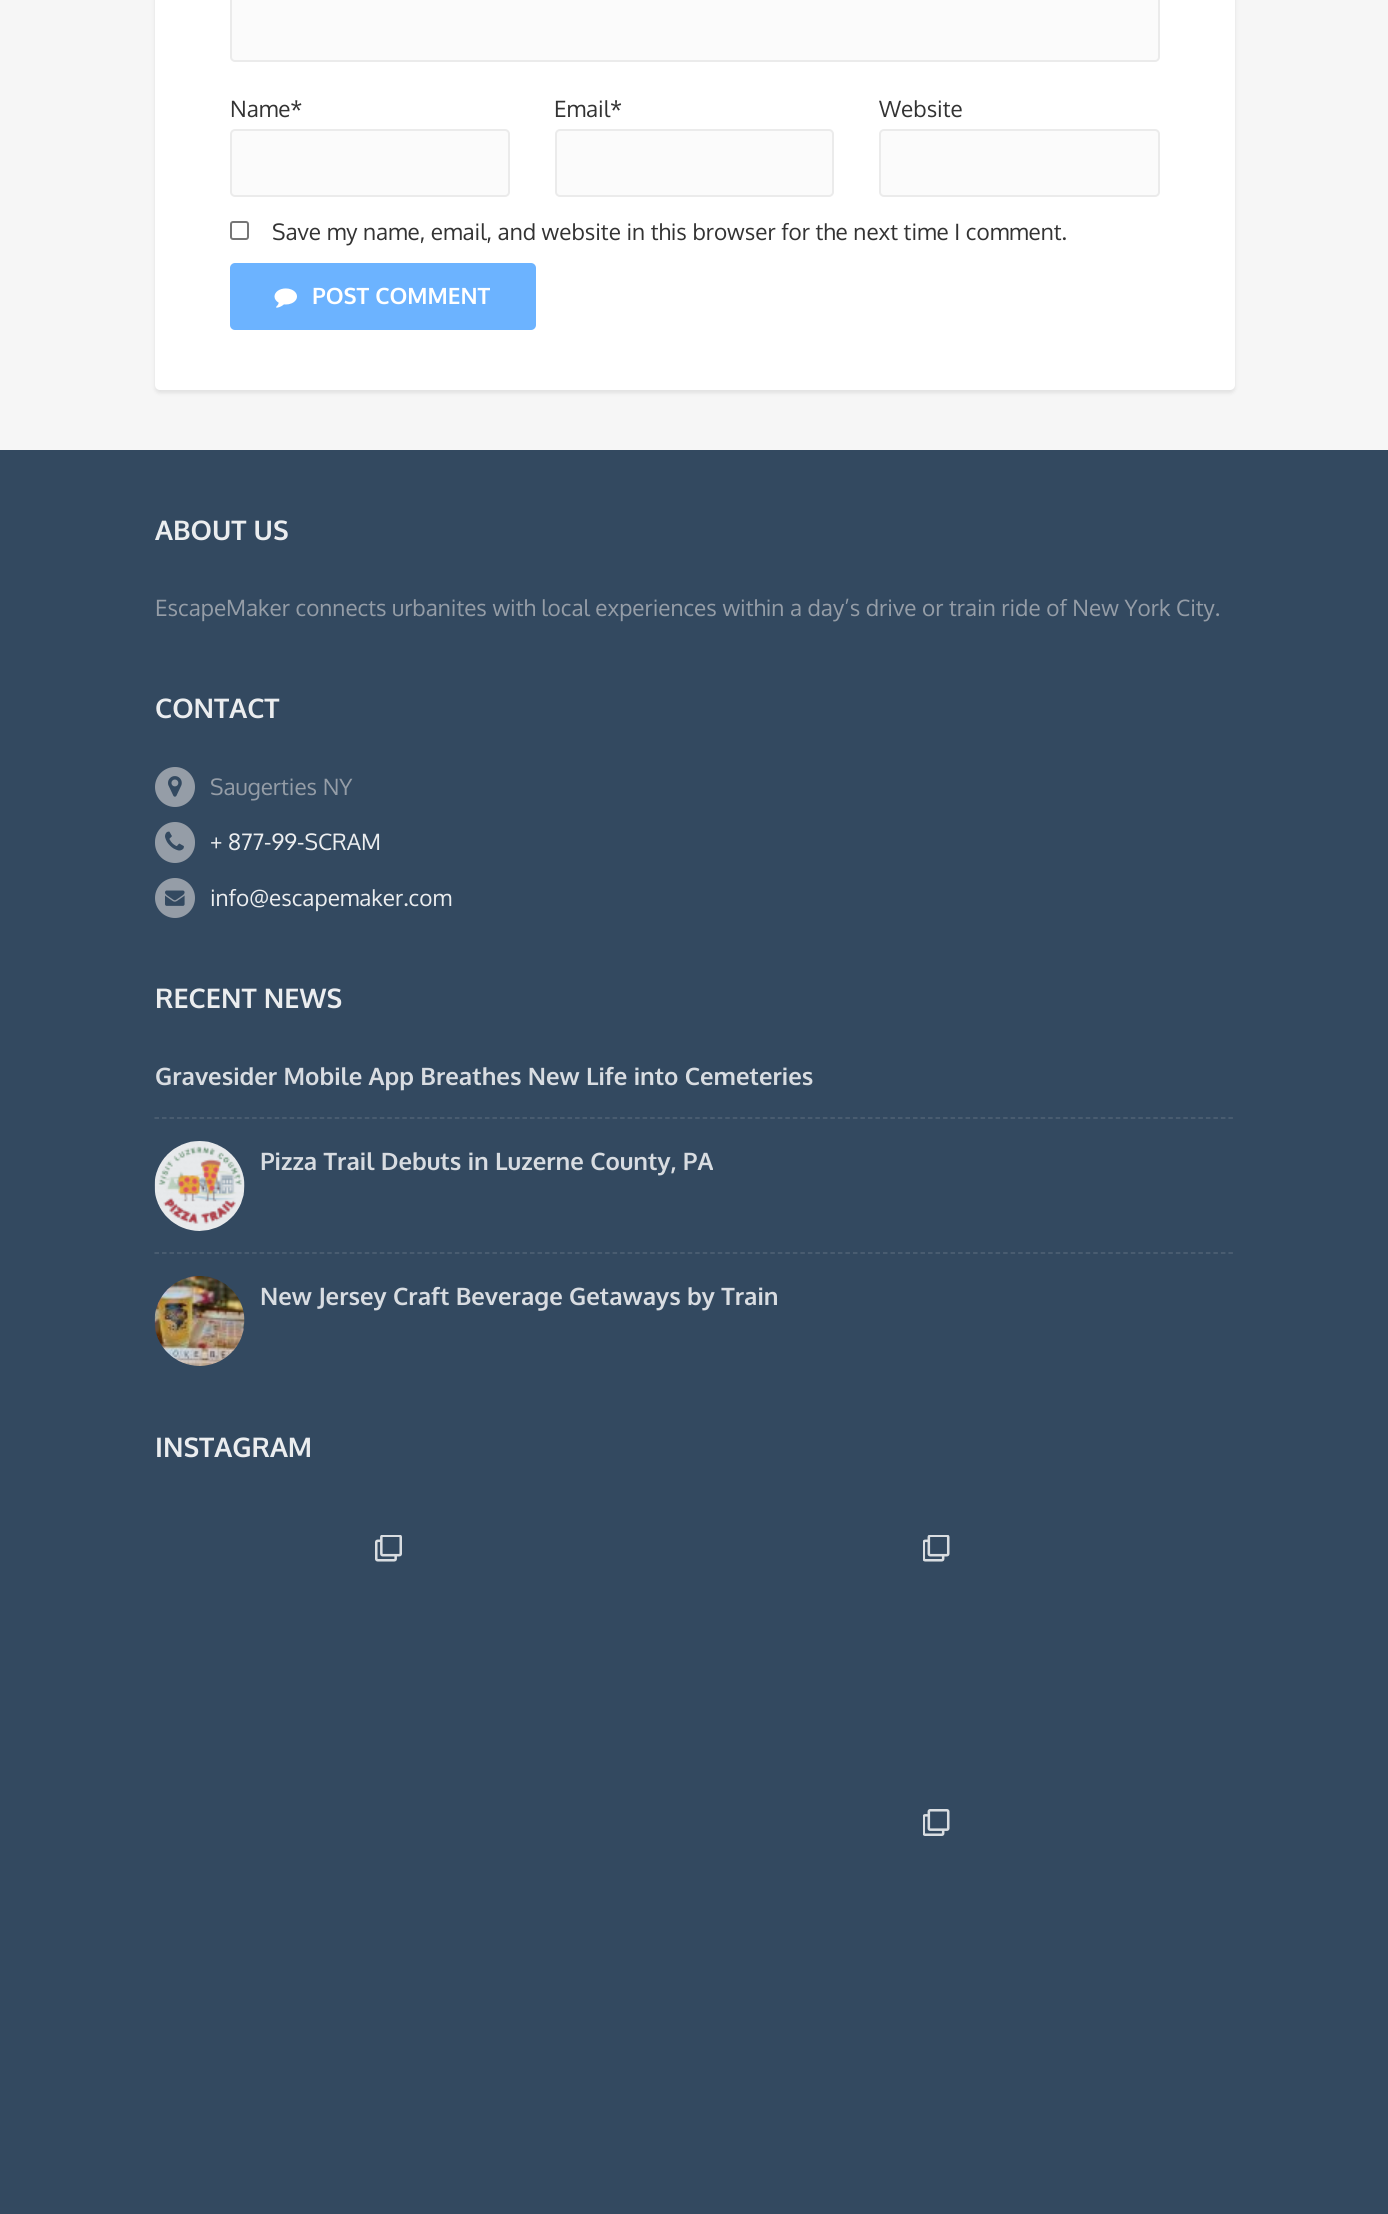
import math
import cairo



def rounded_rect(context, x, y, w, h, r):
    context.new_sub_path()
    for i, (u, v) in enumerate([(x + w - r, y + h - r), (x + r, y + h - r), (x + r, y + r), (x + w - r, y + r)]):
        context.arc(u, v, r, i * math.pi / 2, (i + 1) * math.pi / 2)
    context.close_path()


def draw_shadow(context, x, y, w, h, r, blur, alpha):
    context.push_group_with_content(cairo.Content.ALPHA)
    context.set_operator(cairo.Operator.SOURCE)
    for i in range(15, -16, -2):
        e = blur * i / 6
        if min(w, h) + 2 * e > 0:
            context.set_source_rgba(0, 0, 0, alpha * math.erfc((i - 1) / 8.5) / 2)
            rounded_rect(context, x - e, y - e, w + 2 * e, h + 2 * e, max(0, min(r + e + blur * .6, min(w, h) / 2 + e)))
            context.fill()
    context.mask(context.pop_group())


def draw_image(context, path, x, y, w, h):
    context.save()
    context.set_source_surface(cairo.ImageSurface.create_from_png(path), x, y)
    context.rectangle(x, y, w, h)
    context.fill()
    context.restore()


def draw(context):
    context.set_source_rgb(246 / 255, 246 / 255, 246 / 255)
    context.paint()
    context.set_source_rgb(0, 0, 0)
    draw_shadow(context, 155, -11, 1080, 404, 5, 2, 0.09)
    context.set_source_rgb(1, 1, 1)
    rounded_rect(context, 155, -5, 1080, 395, 5)
    context.fill()
    context.set_source_rgb(251 / 255, 251 / 255, 251 / 255)
    rounded_rect(context, 231, -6, 928, 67, 4)
    context.fill_preserve()
    context.set_source_rgb(235 / 255, 235 / 255, 235 / 255)
    context.stroke()
    context.set_source_rgb(251 / 255, 251 / 255, 251 / 255)
    rounded_rect(context, 231, 130, 278, 66, 4)
    context.fill_preserve()
    context.set_source_rgb(235 / 255, 235 / 255, 235 / 255)
    context.stroke()
    context.set_source_rgb(251 / 255, 251 / 255, 251 / 255)
    rounded_rect(context, 556, 130, 277, 66, 4)
    context.fill_preserve()
    context.set_source_rgb(235 / 255, 235 / 255, 235 / 255)
    context.stroke()
    context.set_source_rgb(251 / 255, 251 / 255, 251 / 255)
    rounded_rect(context, 880, 130, 279, 66, 4)
    context.fill_preserve()
    context.set_source_rgb(235 / 255, 235 / 255, 235 / 255)
    context.stroke()
    rounded_rect(context, 231, 222, 17, 17, 2)
    context.set_source_rgb(118 / 255, 118 / 255, 118 / 255)
    context.stroke()
    context.set_source_rgb(108 / 255, 179 / 255, 1)
    rounded_rect(context, 230, 263, 306, 67, 5)
    context.fill()
    draw_image(context, "images/1.png", 274, 288, 23, 20)
    context.set_source_rgb(51 / 255, 73 / 255, 96 / 255)
    context.rectangle(0, 450, 1388, 1764)
    context.fill()
    context.set_source_rgb(149 / 255, 157 / 255, 167 / 255)
    context.arc(175, 787, 20, 0, 2 * math.pi)
    context.fill()
    draw_image(context, "images/2.png", 168, 776, 14, 21)
    rounded_rect(context, 155, 822, 40, 41, 20)
    context.fill()
    draw_image(context, "images/3.png", 165, 831, 19, 20)
    context.arc(175, 898, 20, 0, 2 * math.pi)
    context.fill()
    draw_image(context, "images/4.png", 165, 890, 20, 16)
    context.new_path()
    context.move_to(154.5, 1118)
    context.line_to(1234.5, 1118)
    context.set_source_rgb(80 / 255, 98 / 255, 117 / 255)
    context.set_line_width(1.5)
    context.set_dash([4.5, 3.01])
    context.stroke()
    draw_image(context, "images/5.png", 154, 1141, 91, 90)
    context.new_path()
    context.move_to(154.5, 1253)
    context.line_to(1234.5, 1253)
    context.stroke()
    draw_image(context, "images/6.png", 154, 1276, 91, 90)
    draw_image(context, "images/7.png", 375, 1535, 27, 27)
    draw_image(context, "images/8.png", 923, 1535, 27, 27)
    draw_image(context, "images/9.png", 923, 1809, 27, 27)
    context.select_font_face("Oxygen")
    context.set_font_size(22.5)
    context.set_source_rgb(51 / 255, 51 / 255, 51 / 255)
    context.move_to(230, 117)
    context.show_text("Name*")
    context.move_to(554, 117)
    context.show_text("Email*")
    context.move_to(879, 117)
    context.show_text("Website")
    context.move_to(272, 240)
    context.show_text("Save my name, email, and website in this browser for the next time I comment.")
    context.select_font_face("Oxygen", cairo.FontSlant.NORMAL, cairo.FontWeight.BOLD)
    context.set_source_rgb(1, 1, 1)
    context.move_to(312, 304)
    context.show_text("POST COMMENT")
    context.set_font_size(27)
    context.set_source_rgb(235 / 255, 237 / 255, 239 / 255)
    context.move_to(155, 540)
    context.show_text("ABOUT US")
    context.select_font_face("Oxygen")
    context.set_font_size(22.5)
    context.set_source_rgb(149 / 255, 157 / 255, 167 / 255)
    context.move_to(155, 616)
    context.show_text("EscapeMaker connects urbanites with local experiences within a day’s drive or train ride of New York City.")
    context.select_font_face("Oxygen", cairo.FontSlant.NORMAL, cairo.FontWeight.BOLD)
    context.set_font_size(27)
    context.set_source_rgb(235 / 255, 237 / 255, 239 / 255)
    context.move_to(155, 718)
    context.show_text("CONTACT")
    context.select_font_face("Oxygen")
    context.set_font_size(22.5)
    context.set_source_rgb(149 / 255, 157 / 255, 167 / 255)
    context.move_to(210, 795)
    context.show_text("Saugerties NY")
    context.set_source_rgb(235 / 255, 237 / 255, 239 / 255)
    context.move_to(210, 850)
    context.show_text("+ 877-99-SCRAM")
    context.move_to(210, 906)
    context.show_text("info@escapemaker.com")
    context.select_font_face("Oxygen", cairo.FontSlant.NORMAL, cairo.FontWeight.BOLD)
    context.set_font_size(27)
    context.move_to(155, 1008)
    context.show_text("RECENT NEWS")
    context.set_font_size(24)
    context.set_source_rgb(216 / 255, 220 / 255, 225 / 255)
    context.move_to(155, 1085)
    context.show_text("Gravesider Mobile App Breathes New Life into Cemeteries")
    context.move_to(260, 1170)
    context.show_text("Pizza Trail Debuts in Luzerne County, PA")
    context.move_to(260, 1305)
    context.show_text("New Jersey Craft Beverage Getaways by Train")
    context.set_font_size(27)
    context.set_source_rgb(235 / 255, 237 / 255, 239 / 255)
    context.move_to(155, 1457)
    context.show_text("INSTAGRAM")


surface = cairo.ImageSurface(cairo.Format.RGB24, 1388, 2214)
context = cairo.Context(surface)
options = cairo.FontOptions()
options.set_hint_metrics(cairo.HintMetrics.OFF)
options.set_hint_style(cairo.HintStyle.NONE)
context.set_font_options(options)
context.set_miter_limit(4)
draw(context)
surface.write_to_png("out.png")
